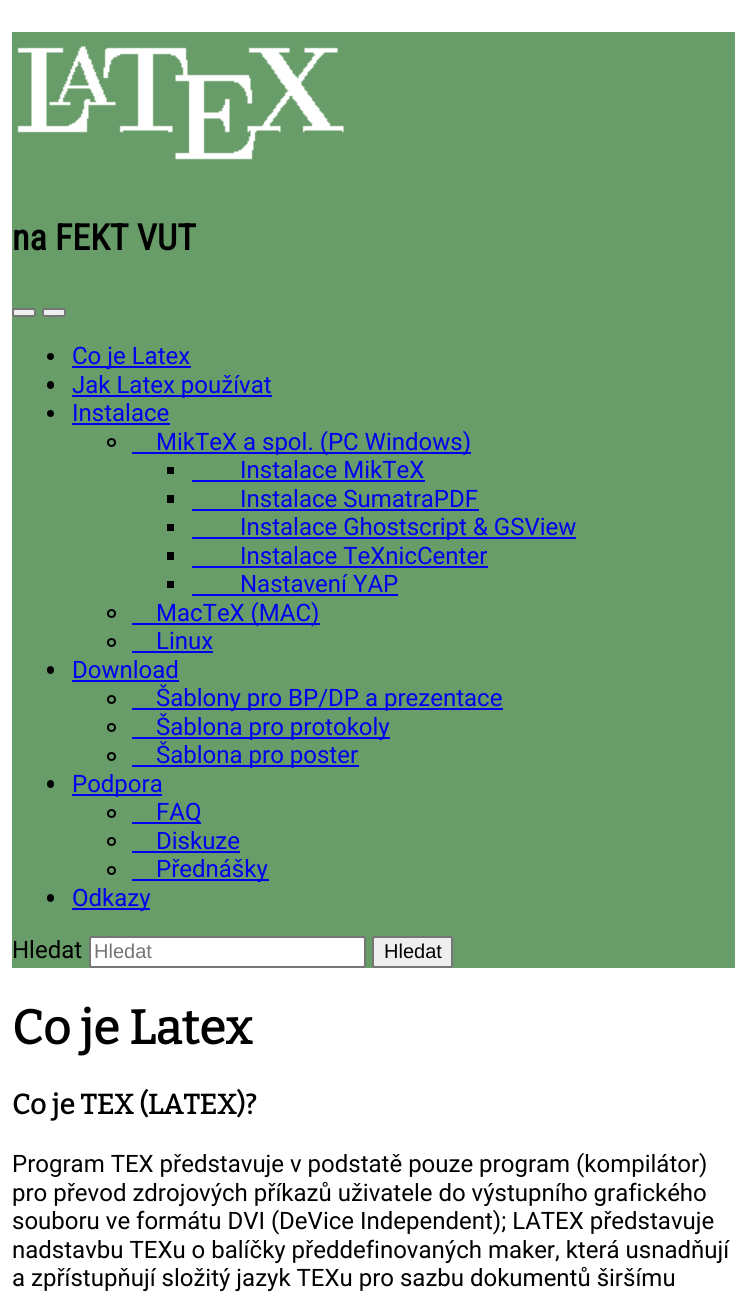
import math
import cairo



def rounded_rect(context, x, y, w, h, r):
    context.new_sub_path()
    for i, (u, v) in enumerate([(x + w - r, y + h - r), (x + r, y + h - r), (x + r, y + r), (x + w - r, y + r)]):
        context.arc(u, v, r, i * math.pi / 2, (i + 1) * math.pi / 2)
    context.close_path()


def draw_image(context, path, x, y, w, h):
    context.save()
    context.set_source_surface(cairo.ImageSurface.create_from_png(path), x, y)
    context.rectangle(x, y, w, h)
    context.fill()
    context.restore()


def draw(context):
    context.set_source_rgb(1, 1, 1)
    context.paint()
    context.set_source_rgb(104 / 255, 156 / 255, 104 / 255)
    context.rectangle(12, 32, 723, 936)
    context.fill()
    draw_image(context, "images/1.png", 17, 46, 327, 114)
    context.set_source_rgb(239 / 255, 239 / 255, 239 / 255)
    rounded_rect(context, 13, 309, 22, 7, 2)
    context.fill_preserve()
    context.set_source_rgb(118 / 255, 118 / 255, 118 / 255)
    context.stroke()
    context.set_source_rgb(239 / 255, 239 / 255, 239 / 255)
    rounded_rect(context, 43, 309, 22, 7, 2)
    context.fill_preserve()
    context.set_source_rgb(118 / 255, 118 / 255, 118 / 255)
    context.stroke()
    context.set_source_rgb(0, 0, 0)
    context.arc(50.5, 356.5, 3.5, 0, 2 * math.pi)
    context.fill()
    context.set_source_rgb(0, 0, 238 / 255)
    context.rectangle(72, 366, 119, 2)
    context.fill()
    context.set_source_rgb(0, 0, 0)
    rounded_rect(context, 47, 381, 7, 8, 3.5)
    context.fill()
    context.set_source_rgb(0, 0, 238 / 255)
    context.rectangle(72, 395, 200, 2)
    context.fill()
    context.set_source_rgb(0, 0, 0)
    context.arc(50.5, 413.5, 3.5, 0, 2 * math.pi)
    context.fill()
    context.set_source_rgb(0, 0, 238 / 255)
    context.rectangle(72, 423, 98, 2)
    context.fill()
    context.arc(111.5, 442.5, 3.5, 0, 2 * math.pi)
    context.set_source_rgb(0, 0, 0)
    context.stroke()
    context.set_source_rgb(0, 0, 238 / 255)
    context.rectangle(132, 452, 339, 2)
    context.fill()
    context.set_source_rgb(0, 0, 0)
    context.rectangle(167, 467, 7, 7)
    context.fill()
    context.set_source_rgb(0, 0, 238 / 255)
    context.rectangle(192, 480, 233, 2)
    context.fill()
    context.set_source_rgb(0, 0, 0)
    context.rectangle(167, 495, 7, 8)
    context.fill()
    context.set_source_rgb(0, 0, 238 / 255)
    context.rectangle(192, 509, 287, 2)
    context.fill()
    context.set_source_rgb(0, 0, 0)
    context.rectangle(167, 524, 7, 7)
    context.fill()
    context.set_source_rgb(0, 0, 238 / 255)
    context.rectangle(192, 537, 384, 2)
    context.fill()
    context.set_source_rgb(0, 0, 0)
    context.rectangle(167, 552, 7, 8)
    context.fill()
    context.set_source_rgb(0, 0, 238 / 255)
    context.rectangle(192, 566, 296, 2)
    context.fill()
    context.set_source_rgb(0, 0, 0)
    context.rectangle(167, 581, 7, 7)
    context.fill()
    context.set_source_rgb(0, 0, 238 / 255)
    context.rectangle(192, 594, 206, 2)
    context.fill()
    context.arc(111.5, 613.5, 3.5, 0, 2 * math.pi)
    context.set_source_rgb(0, 0, 0)
    context.stroke()
    context.set_source_rgb(0, 0, 238 / 255)
    context.rectangle(132, 623, 188, 2)
    context.fill()
    context.arc(111.5, 642.5, 3.5, 0, 2 * math.pi)
    context.set_source_rgb(0, 0, 0)
    context.stroke()
    context.set_source_rgb(0, 0, 238 / 255)
    context.rectangle(132, 651, 81, 2)
    context.fill()
    context.set_source_rgb(0, 0, 0)
    rounded_rect(context, 47, 666, 7, 8, 3.5)
    context.fill()
    context.set_source_rgb(0, 0, 238 / 255)
    context.rectangle(72, 680, 107, 2)
    context.fill()
    context.arc(111.5, 699.5, 3.5, 0, 2 * math.pi)
    context.set_source_rgb(0, 0, 0)
    context.stroke()
    context.set_source_rgb(0, 0, 238 / 255)
    context.rectangle(132, 708, 371, 2)
    context.fill()
    context.arc(111.5, 727.5, 3.5, 0, 2 * math.pi)
    context.set_source_rgb(0, 0, 0)
    context.stroke()
    context.set_source_rgb(0, 0, 238 / 255)
    context.rectangle(132, 737, 258, 2)
    context.fill()
    context.arc(111.5, 756.5, 3.5, 0, 2 * math.pi)
    context.set_source_rgb(0, 0, 0)
    context.stroke()
    context.set_source_rgb(0, 0, 238 / 255)
    context.rectangle(132, 765, 227, 2)
    context.fill()
    context.set_source_rgb(0, 0, 0)
    rounded_rect(context, 47, 780, 7, 8, 3.5)
    context.fill()
    context.set_source_rgb(0, 0, 238 / 255)
    context.rectangle(72, 794, 90, 2)
    context.fill()
    context.arc(111.5, 813.5, 3.5, 0, 2 * math.pi)
    context.set_source_rgb(0, 0, 0)
    context.stroke()
    context.set_source_rgb(0, 0, 238 / 255)
    context.rectangle(132, 822, 69, 2)
    context.fill()
    context.arc(111.5, 841.5, 3.5, 0, 2 * math.pi)
    context.set_source_rgb(0, 0, 0)
    context.stroke()
    context.set_source_rgb(0, 0, 238 / 255)
    context.rectangle(132, 851, 108, 2)
    context.fill()
    context.arc(111.5, 870.5, 3.5, 0, 2 * math.pi)
    context.set_source_rgb(0, 0, 0)
    context.stroke()
    context.set_source_rgb(0, 0, 238 / 255)
    context.rectangle(132, 879, 137, 2)
    context.fill()
    context.set_source_rgb(0, 0, 0)
    rounded_rect(context, 47, 894, 7, 8, 3.5)
    context.fill()
    context.set_source_rgb(0, 0, 238 / 255)
    context.rectangle(72, 908, 78, 2)
    context.fill()
    context.set_source_rgb(1, 1, 1)
    rounded_rect(context, 90, 937, 275, 30, 2)
    context.fill_preserve()
    context.set_source_rgb(118 / 255, 118 / 255, 118 / 255)
    context.stroke()
    context.set_source_rgb(239 / 255, 239 / 255, 239 / 255)
    rounded_rect(context, 373, 937, 79, 30, 2)
    context.fill_preserve()
    context.set_source_rgb(118 / 255, 118 / 255, 118 / 255)
    context.stroke()
    context.select_font_face("Roboto Condensed", cairo.FontSlant.NORMAL, cairo.FontWeight.BOLD)
    context.set_font_size(36)
    context.set_source_rgb(0, 0, 0)
    context.move_to(12, 250)
    context.show_text("na FEKT VUT")
    context.select_font_face("Roboto")
    context.set_font_size(24)
    context.set_source_rgb(0, 0, 238 / 255)
    context.move_to(72, 364)
    context.show_text("Co je Latex")
    context.move_to(72, 393)
    context.show_text("Jak Latex používat")
    context.move_to(72, 421)
    context.show_text("Instalace")
    context.move_to(156, 450)
    context.show_text("MikTeX a spol. (PC Windows)")
    context.move_to(240, 478)
    context.show_text("Instalace MikTeX")
    context.move_to(240, 507)
    context.show_text("Instalace SumatraPDF")
    context.move_to(240, 535)
    context.show_text("Instalace Ghostscript & GSView")
    context.move_to(240, 564)
    context.show_text("Instalace TeXnicCenter")
    context.move_to(240, 592)
    context.show_text("Nastavení YAP")
    context.move_to(156, 621)
    context.show_text("MacTeX (MAC)")
    context.move_to(156, 649)
    context.show_text("Linux")
    context.move_to(72, 678)
    context.show_text("Download")
    context.move_to(156, 706)
    context.show_text("Šablony pro BP/DP a prezentace")
    context.move_to(156, 735)
    context.show_text("Šablona pro protokoly")
    context.move_to(156, 763)
    context.show_text("Šablona pro poster")
    context.move_to(72, 792)
    context.show_text("Podpora")
    context.move_to(156, 820)
    context.show_text("FAQ")
    context.move_to(156, 849)
    context.show_text("Diskuze")
    context.move_to(156, 877)
    context.show_text("Přednášky")
    context.move_to(72, 906)
    context.show_text("Odkazy")
    context.set_source_rgb(0, 0, 0)
    context.move_to(12, 958)
    context.show_text("Hledat")
    context.select_font_face("Liberation Sans")
    context.set_font_size(20)
    context.set_source_rgb(117 / 255, 117 / 255, 117 / 255)
    context.move_to(94, 958)
    context.show_text("Hledat")
    context.set_source_rgb(0, 0, 0)
    context.move_to(384, 958)
    context.show_text("Hledat")
    context.select_font_face("Bitter", cairo.FontSlant.NORMAL, cairo.FontWeight.BOLD)
    context.set_font_size(48)
    context.move_to(12, 1044)
    context.show_text("Co je Latex")
    context.set_font_size(28)
    context.move_to(12, 1114)
    context.show_text("Co je TEX (LATEX)?")
    context.select_font_face("Roboto")
    context.set_font_size(24)
    context.move_to(12, 1172)
    context.show_text("Program TEX představuje v podstatě pouze program (kompilátor)")
    context.move_to(12, 1201)
    context.show_text("pro převod zdrojových příkazů uživatele do výstupního grafického")
    context.move_to(12, 1229)
    context.show_text("souboru ve formátu DVI (DeVice Independent); LATEX představuje")
    context.move_to(12, 1258)
    context.show_text("nadstavbu TEXu o balíčky předdefinovaných maker, která usnadňují")
    context.move_to(12, 1286)
    context.show_text("a zpřístupňují složitý jazyk TEXu pro sazbu dokumentů širšímu")


surface = cairo.ImageSurface(cairo.Format.RGB24, 746, 1307)
context = cairo.Context(surface)
options = cairo.FontOptions()
options.set_hint_metrics(cairo.HintMetrics.OFF)
options.set_hint_style(cairo.HintStyle.NONE)
context.set_font_options(options)
context.set_miter_limit(4)
draw(context)
surface.write_to_png("out.png")
